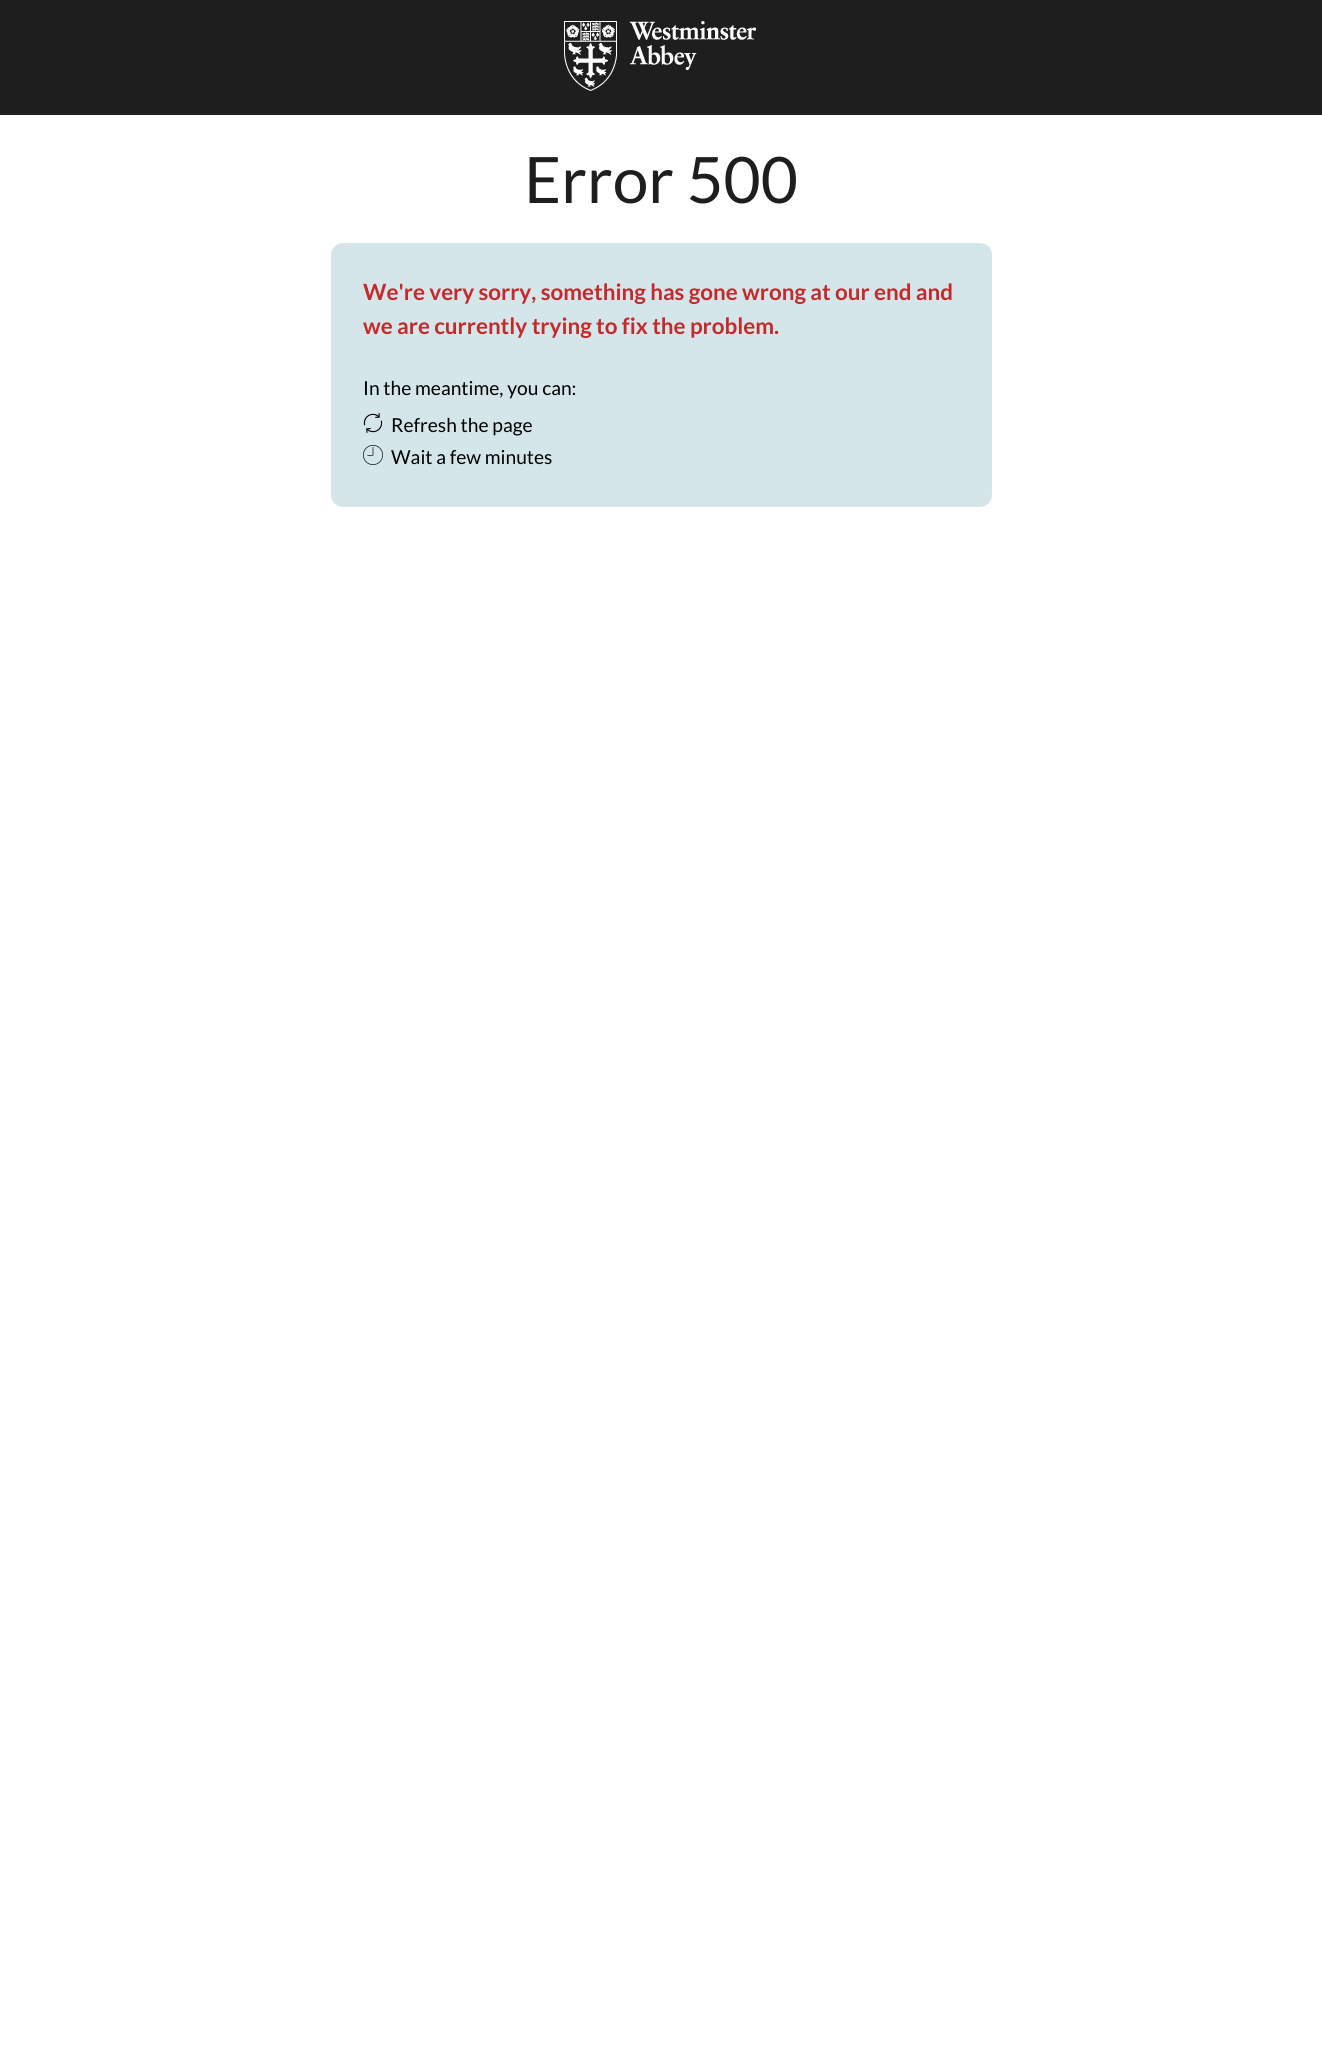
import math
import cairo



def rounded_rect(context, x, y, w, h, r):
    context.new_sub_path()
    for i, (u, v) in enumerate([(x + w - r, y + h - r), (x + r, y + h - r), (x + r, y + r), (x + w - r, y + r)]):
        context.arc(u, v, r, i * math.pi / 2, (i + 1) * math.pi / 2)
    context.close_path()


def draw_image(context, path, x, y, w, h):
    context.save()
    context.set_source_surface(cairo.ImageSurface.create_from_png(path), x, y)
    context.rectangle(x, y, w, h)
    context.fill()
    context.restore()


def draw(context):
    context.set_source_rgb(1, 1, 1)
    context.paint()
    context.set_source_rgb(30 / 255, 30 / 255, 30 / 255)
    context.rectangle(0, 0, 1322, 115)
    context.fill()
    draw_image(context, "images/1.png", 564, 21, 192, 70)
    context.set_source_rgb(213 / 255, 230 / 255, 234 / 255)
    rounded_rect(context, 331, 243, 661, 264, 12)
    context.fill()
    draw_image(context, "images/2.png", 363, 413, 20, 20)
    draw_image(context, "images/3.png", 363, 445, 20, 20)
    context.select_font_face("Lato")
    context.set_font_size(64)
    context.set_source_rgb(30 / 255, 30 / 255, 30 / 255)
    context.move_to(524, 203)
    context.show_text("Error 500")
    context.select_font_face("Lato", cairo.FontSlant.NORMAL, cairo.FontWeight.BOLD)
    context.set_font_size(22.4)
    context.set_source_rgb(196 / 255, 42 / 255, 42 / 255)
    context.move_to(363, 300)
    context.show_text("We're very sorry, something has gone wrong at our end and")
    context.move_to(363, 334)
    context.show_text("we are currently trying to fix the problem.")
    context.select_font_face("Lato")
    context.set_font_size(19.25)
    context.set_source_rgb(0, 0, 0)
    context.move_to(363, 395)
    context.show_text("In the meantime, you can:")
    context.move_to(391, 432)
    context.show_text("Refresh the page")
    context.move_to(391, 464)
    context.show_text("Wait a few minutes")


surface = cairo.ImageSurface(cairo.Format.RGB24, 1322, 2056)
context = cairo.Context(surface)
options = cairo.FontOptions()
options.set_hint_metrics(cairo.HintMetrics.OFF)
options.set_hint_style(cairo.HintStyle.NONE)
context.set_font_options(options)
context.set_miter_limit(4)
draw(context)
surface.write_to_png("out.png")
